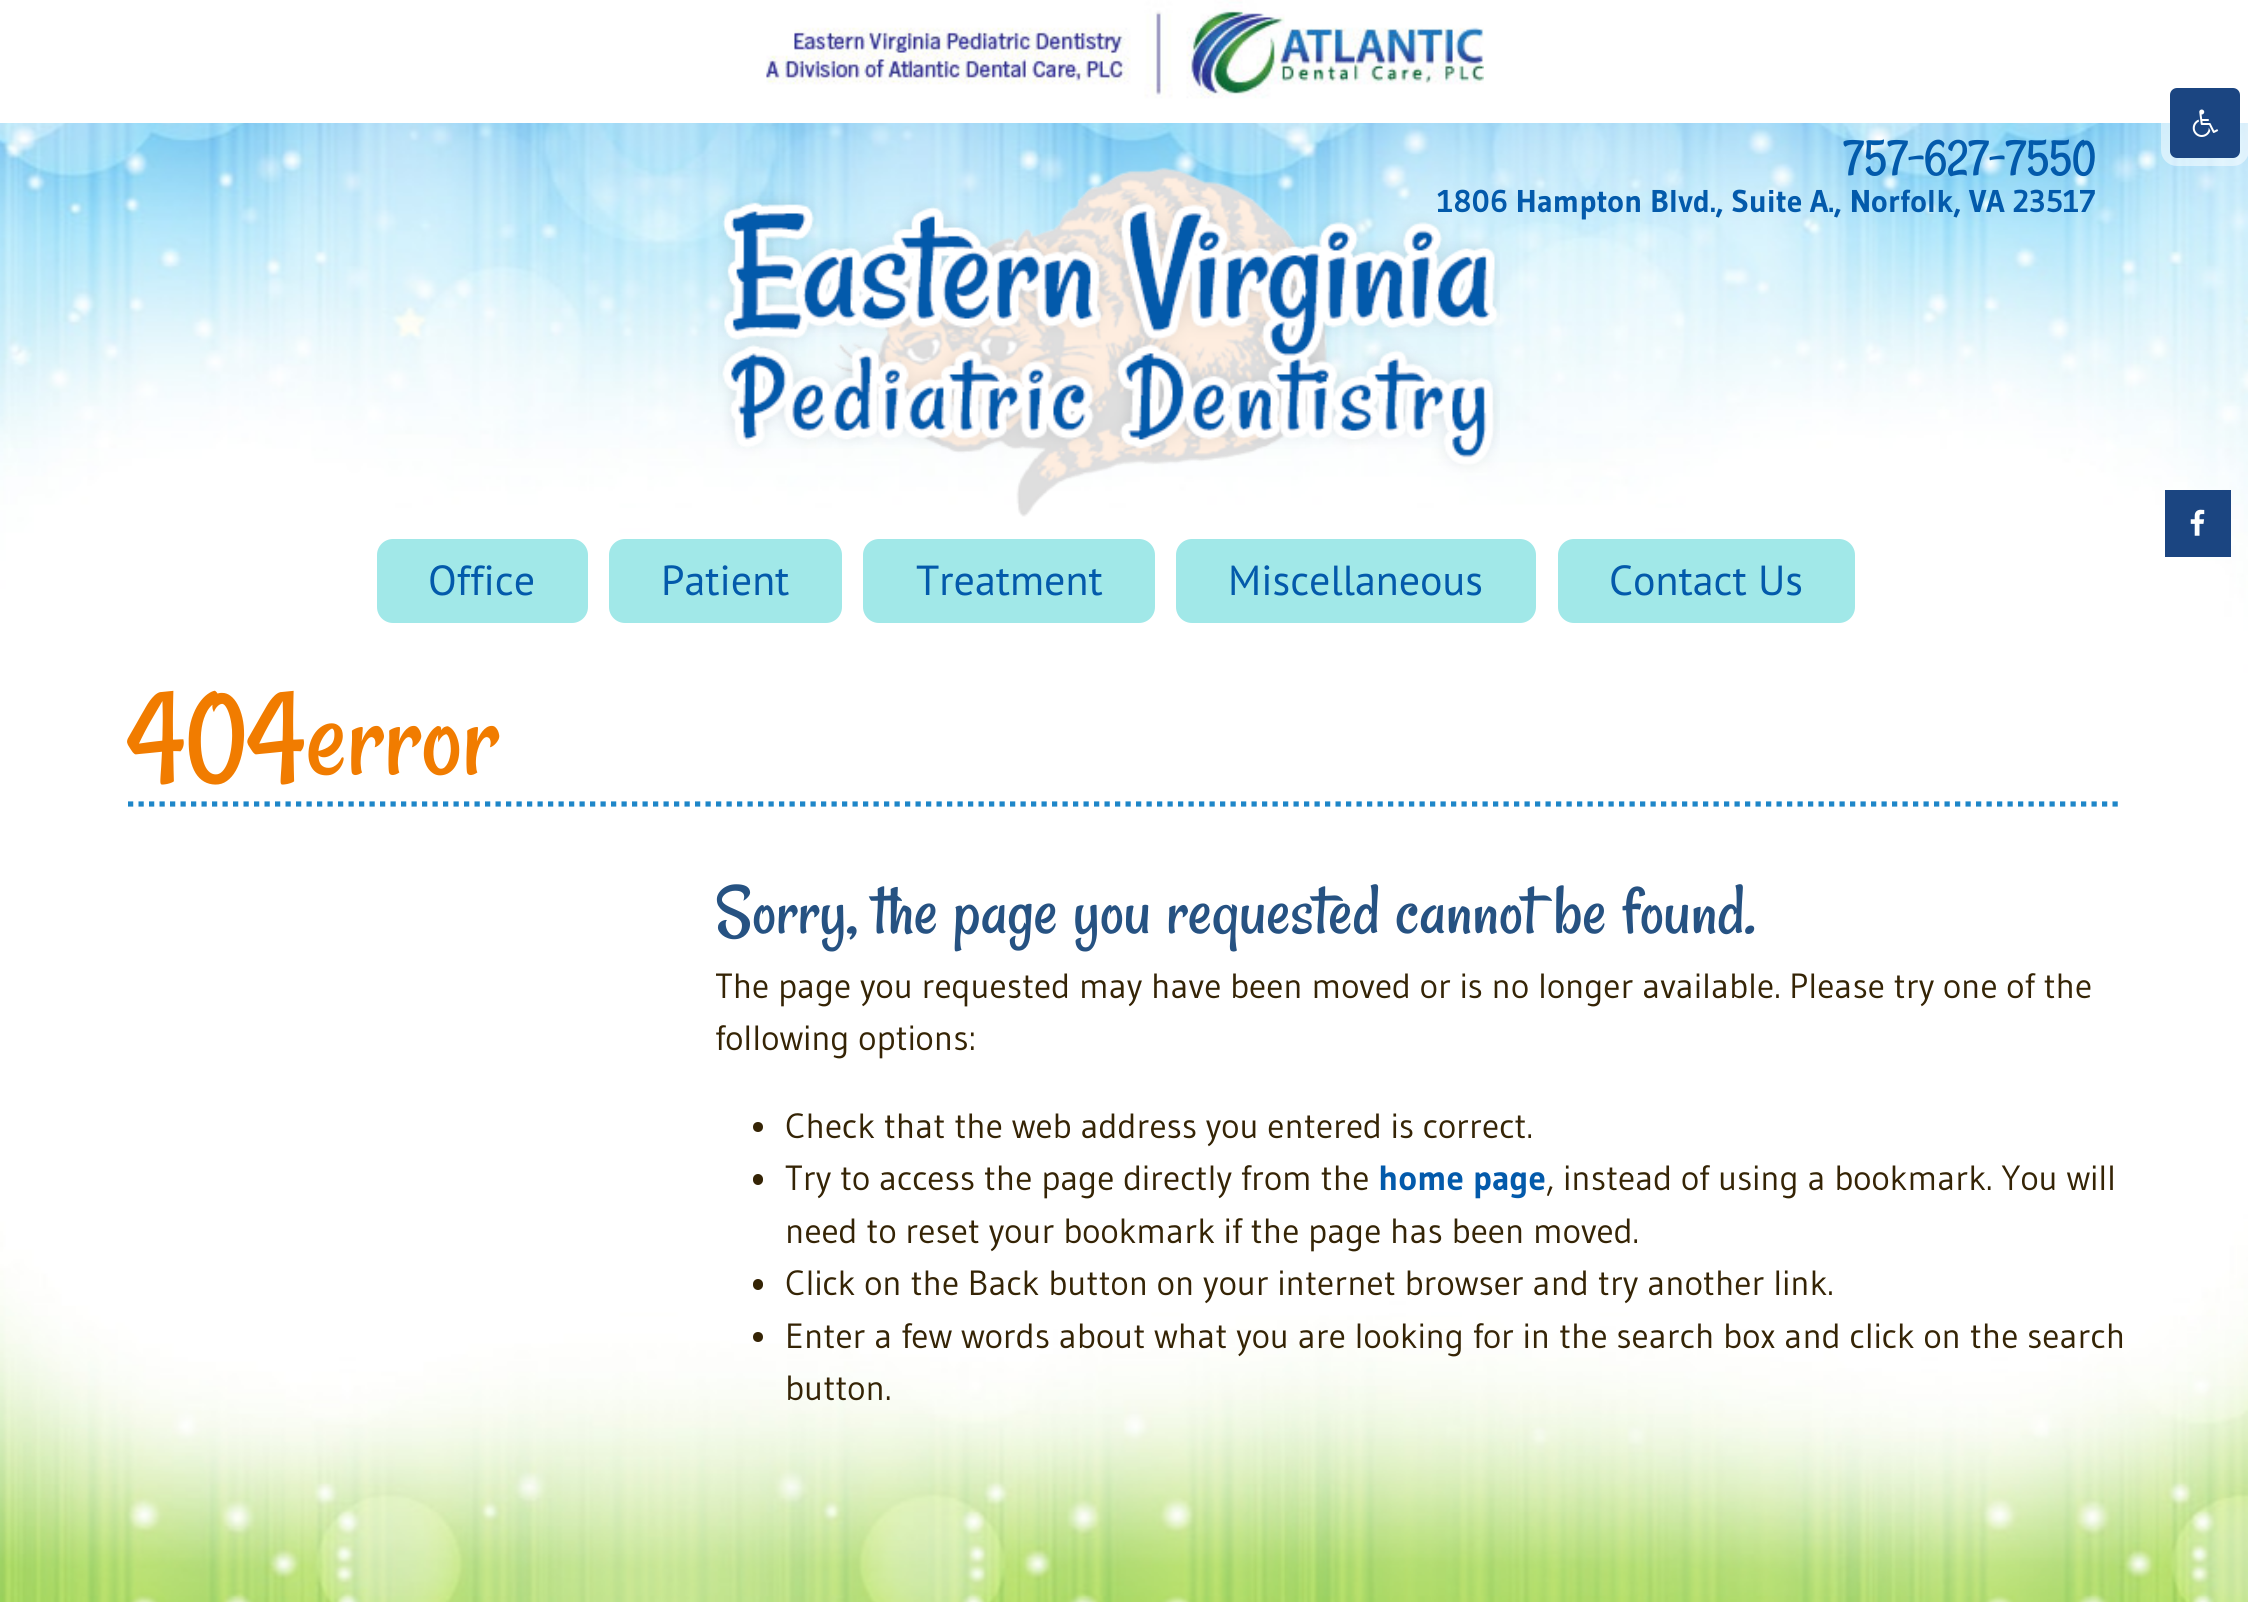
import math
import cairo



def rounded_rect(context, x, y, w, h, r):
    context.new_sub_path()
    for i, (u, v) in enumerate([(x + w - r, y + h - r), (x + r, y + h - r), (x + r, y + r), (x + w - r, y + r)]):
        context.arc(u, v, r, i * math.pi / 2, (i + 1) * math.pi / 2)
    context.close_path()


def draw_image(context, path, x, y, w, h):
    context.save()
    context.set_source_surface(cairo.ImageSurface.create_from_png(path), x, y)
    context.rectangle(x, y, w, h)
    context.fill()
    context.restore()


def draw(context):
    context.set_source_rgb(1, 1, 1)
    context.paint()
    draw_image(context, "images/1.png", 766, 0, 718, 99)
    draw_image(context, "images/3.png", 0, 123, 2248, 1479)
    rounded_rect(context, 2165.5, 83.5, 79, 78, 11.5)
    context.set_source_rgba(1, 1, 1, 0.5)
    context.set_line_width(9)
    context.stroke()
    context.set_source_rgb(27 / 255, 69 / 255, 129 / 255)
    rounded_rect(context, 2170, 88, 70, 70, 7)
    context.fill()
    draw_image(context, "images/2.png", 2192, 109, 27, 28)
    draw_image(context, "images/4.png", 718, 167, 782, 350)
    context.rectangle(2165, 490, 66, 67)
    context.fill()
    draw_image(context, "images/5.png", 2190, 509, 15, 27)
    context.set_source_rgb(161 / 255, 232 / 255, 232 / 255)
    rounded_rect(context, 376, 538, 213, 86, 17)
    context.fill_preserve()
    context.set_source_rgb(1, 1, 1)
    context.set_line_width(2)
    context.stroke()
    context.set_source_rgb(161 / 255, 232 / 255, 232 / 255)
    rounded_rect(context, 608, 538, 235, 86, 17)
    context.fill_preserve()
    context.set_source_rgb(1, 1, 1)
    context.stroke()
    context.set_source_rgb(161 / 255, 232 / 255, 232 / 255)
    rounded_rect(context, 862, 538, 294, 86, 17)
    context.fill_preserve()
    context.set_source_rgb(1, 1, 1)
    context.stroke()
    context.set_source_rgb(161 / 255, 232 / 255, 232 / 255)
    rounded_rect(context, 1175, 538, 362, 86, 17)
    context.fill_preserve()
    context.set_source_rgb(1, 1, 1)
    context.stroke()
    context.set_source_rgb(161 / 255, 232 / 255, 232 / 255)
    rounded_rect(context, 1557, 538, 299, 86, 17)
    context.fill_preserve()
    context.set_source_rgb(1, 1, 1)
    context.stroke()
    context.new_path()
    context.move_to(128, 804)
    context.line_to(2123, 804)
    context.set_source_rgb(30 / 255, 134 / 255, 200 / 255)
    context.set_line_width(5.2)
    context.set_dash([5.25, 5.25])
    context.stroke()
    context.set_source_rgb(53 / 255, 36 / 255, 5 / 255)
    context.arc(758, 1127, 5, 0, 2 * math.pi)
    context.fill()
    rounded_rect(context, 753, 1174, 10, 11, 5)
    context.fill()
    rounded_rect(context, 753, 1279, 10, 11, 5)
    context.fill()
    context.arc(758, 1337, 5, 0, 2 * math.pi)
    context.fill()
    context.select_font_face("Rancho")
    context.set_font_size(49)
    context.set_source_rgb(3 / 255, 90 / 255, 171 / 255)
    context.move_to(1843, 172)
    context.show_text("757-627-7550")
    context.select_font_face("Gudea", cairo.FontSlant.NORMAL, cairo.FontWeight.BOLD)
    context.set_font_size(31.5)
    context.move_to(1437, 212)
    context.show_text("1806 Hampton Blvd., Suite A., Norfolk, VA 23517")
    context.select_font_face("PT Sans")
    context.set_font_size(42)
    context.move_to(428, 595)
    context.show_text("Office")
    context.move_to(661, 595)
    context.show_text("Patient")
    context.move_to(916, 595)
    context.show_text("Treatment")
    context.move_to(1228, 595)
    context.show_text("Miscellaneous")
    context.move_to(1609, 595)
    context.show_text("Contact Us")
    context.select_font_face("Rancho")
    context.set_font_size(126)
    context.set_source_rgb(241 / 255, 124 / 255, 0)
    context.move_to(127, 774)
    context.show_text("404error")
    context.set_font_size(73.5)
    context.set_source_rgb(38 / 255, 82 / 255, 130 / 255)
    context.move_to(715, 933)
    context.show_text("Sorry, the page you requested cannot be found.")
    context.save()
    context.rectangle(716, 873, 1433, 559)
    context.clip()
    context.select_font_face("Gudea")
    context.set_font_size(35)
    context.set_source_rgb(53 / 255, 36 / 255, 5 / 255)
    context.move_to(715, 998)
    context.show_text("The page you requested may have been moved or is no longer available. Please try one of the")
    context.restore()
    context.select_font_face("Gudea")
    context.set_font_size(35)
    context.set_source_rgb(53 / 255, 36 / 255, 5 / 255)
    context.move_to(715, 1050)
    context.show_text("following options:")
    context.move_to(785, 1138)
    context.show_text("Check that the web address you entered is correct.")
    context.move_to(785, 1190)
    context.show_text("Try to access the page directly from the")
    context.select_font_face("Gudea", cairo.FontSlant.NORMAL, cairo.FontWeight.BOLD)
    context.set_source_rgb(3 / 255, 90 / 255, 171 / 255)
    context.move_to(1378, 1190)
    context.show_text("home page")
    context.select_font_face("Gudea")
    context.set_source_rgb(53 / 255, 36 / 255, 5 / 255)
    context.move_to(1546, 1190)
    context.show_text(", instead of using a bookmark. You will")
    context.move_to(785, 1243)
    context.show_text("need to reset your bookmark if the page has been moved.")
    context.move_to(785, 1295)
    context.show_text("Click on the Back button on your internet browser and try another link.")
    context.move_to(785, 1348)
    context.show_text("Enter a few words about what you are looking for in the search box and click on the search")
    context.move_to(785, 1400)
    context.show_text("button.")


surface = cairo.ImageSurface(cairo.Format.RGB24, 2248, 1602)
context = cairo.Context(surface)
options = cairo.FontOptions()
options.set_hint_metrics(cairo.HintMetrics.OFF)
options.set_hint_style(cairo.HintStyle.NONE)
context.set_font_options(options)
context.set_miter_limit(4)
draw(context)
surface.write_to_png("out.png")
